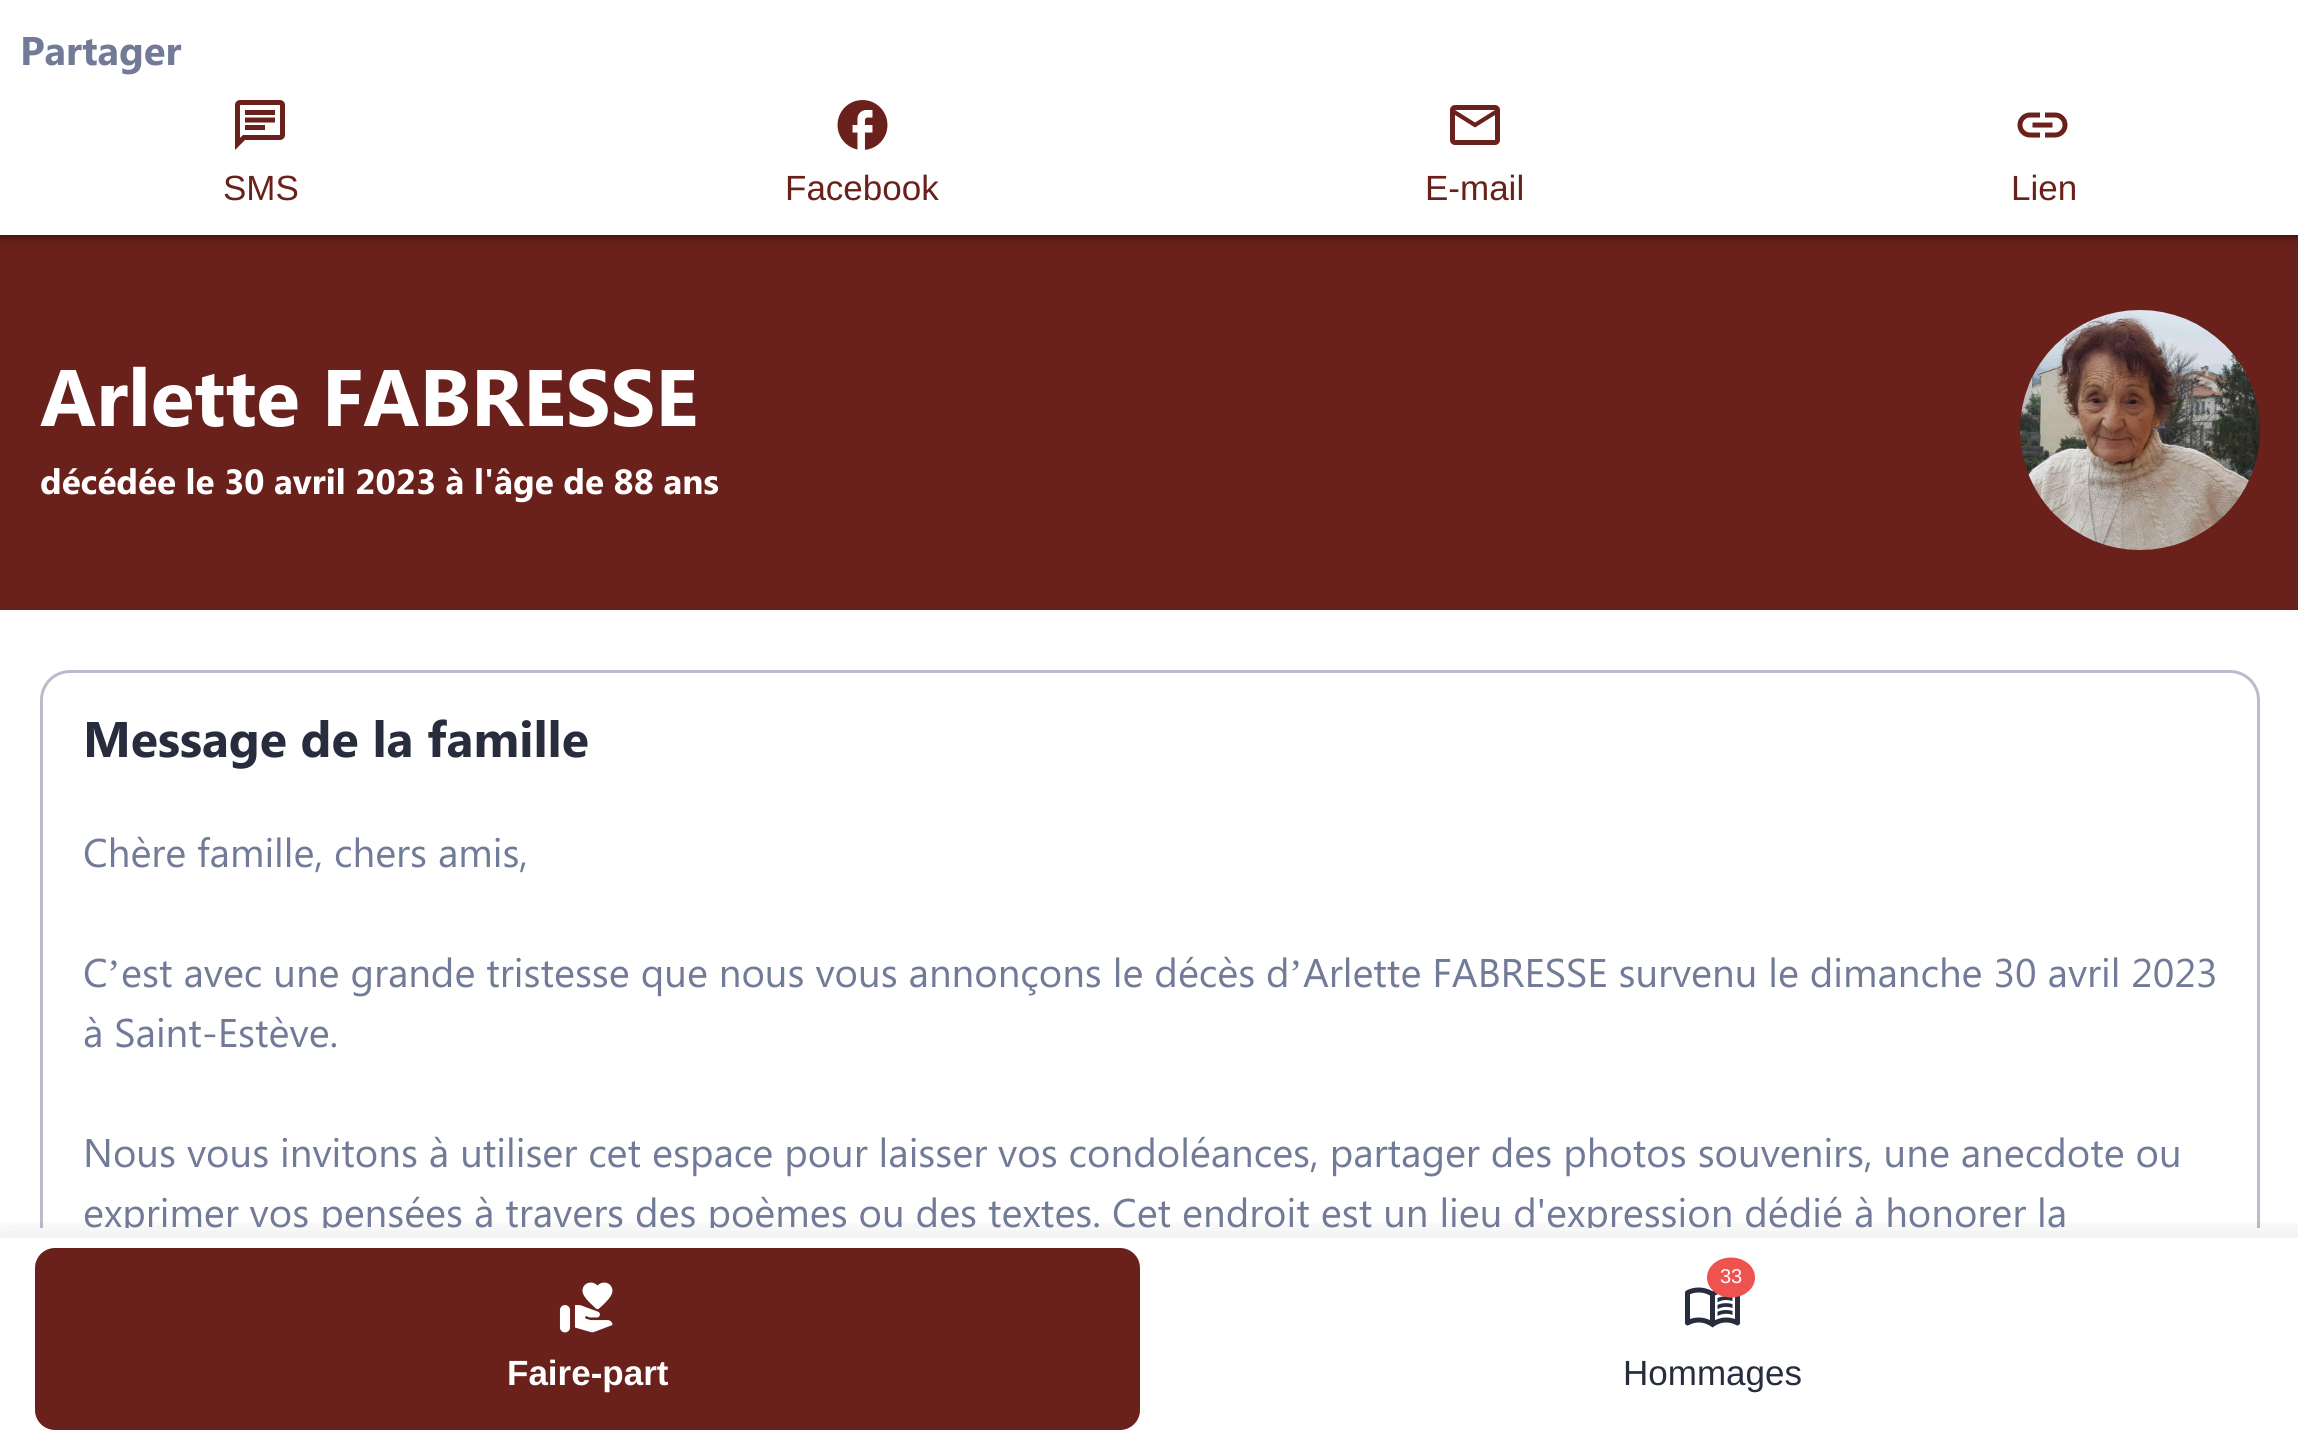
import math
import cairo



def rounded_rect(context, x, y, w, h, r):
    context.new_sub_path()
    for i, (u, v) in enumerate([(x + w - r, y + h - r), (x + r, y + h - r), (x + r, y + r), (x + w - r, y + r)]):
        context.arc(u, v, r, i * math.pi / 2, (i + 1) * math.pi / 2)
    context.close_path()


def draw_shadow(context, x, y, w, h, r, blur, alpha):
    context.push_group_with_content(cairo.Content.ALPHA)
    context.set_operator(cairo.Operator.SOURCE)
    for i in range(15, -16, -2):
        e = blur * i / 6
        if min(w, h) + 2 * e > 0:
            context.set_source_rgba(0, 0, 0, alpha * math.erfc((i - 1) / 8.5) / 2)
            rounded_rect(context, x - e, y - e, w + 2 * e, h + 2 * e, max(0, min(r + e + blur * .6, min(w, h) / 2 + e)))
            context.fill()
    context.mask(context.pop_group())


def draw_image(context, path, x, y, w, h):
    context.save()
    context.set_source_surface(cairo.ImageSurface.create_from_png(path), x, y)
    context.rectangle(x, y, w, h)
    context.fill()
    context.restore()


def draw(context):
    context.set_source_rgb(1, 1, 1)
    context.paint()
    context.set_source_rgb(107 / 255, 33 / 255, 27 / 255)
    context.rectangle(0, 235, 2298, 375)
    context.fill()
    context.set_source_rgb(0, 0, 0)
    draw_shadow(context, -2, 0, 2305, 240, 0, 4, 0.15)
    draw_shadow(context, 0, 3, 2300, 235, 0, 2.5, 0.3)
    context.set_source_rgb(1, 1, 1)
    context.rectangle(0, 0, 2298, 235)
    context.fill()
    draw_image(context, "images/1.png", 235, 100, 50, 50)
    draw_image(context, "images/2.png", 837, 100, 51, 50)
    draw_image(context, "images/3.png", 1450, 105, 50, 40)
    draw_image(context, "images/4.png", 2017, 112, 51, 26)
    draw_image(context, "images/5.png", 2020, 310, 240, 240)
    context.save()
    context.rectangle(0, 0, 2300, 1228)
    context.clip()
    rounded_rect(context, 41.5, 671.5, 2217, 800, 28.5)
    context.set_source_rgb(185 / 255, 189 / 255, 203 / 255)
    context.set_line_width(3)
    context.stroke()
    context.restore()
    context.save()
    context.rectangle(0, 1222, 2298, 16)
    context.clip()
    context.set_source_rgb(0, 0, 0)
    draw_shadow(context, 0, 1248, 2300, 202, 0, 20, 0.2)
    context.restore()
    context.set_source_rgb(107 / 255, 33 / 255, 27 / 255)
    rounded_rect(context, 35, 1248, 1105, 182, 20)
    context.fill()
    draw_image(context, "images/6.png", 559, 1282, 54, 51)
    draw_image(context, "images/7.png", 1685, 1287, 55, 41)
    context.set_source_rgb(239 / 255, 83 / 255, 80 / 255)
    context.new_path()
    context.move_to(1731, 1257.5)
    context.curve_to(1744.5, 1257.5, 1755, 1266.5, 1755, 1277.5)
    context.curve_to(1755, 1288.5, 1744.5, 1297.5, 1731, 1297.5)
    context.curve_to(1717.5, 1297.5, 1707, 1288.5, 1707, 1277.5)
    context.curve_to(1707, 1266.5, 1717.5, 1257.5, 1731, 1257.5)
    context.close_path()
    context.fill()
    context.select_font_face("Segoe UI", cairo.FontSlant.NORMAL, cairo.FontWeight.BOLD)
    context.set_font_size(40)
    context.set_source_rgb(113 / 255, 123 / 255, 152 / 255)
    context.move_to(20, 65)
    context.show_text("Partager")
    context.select_font_face("Liberation Sans")
    context.set_font_size(35)
    context.set_source_rgb(107 / 255, 33 / 255, 27 / 255)
    context.move_to(223, 200)
    context.show_text("SMS")
    context.move_to(785, 200)
    context.show_text("Facebook")
    context.move_to(1425, 200)
    context.show_text("E-mail")
    context.move_to(2011, 200)
    context.show_text("Lien")
    context.select_font_face("Segoe UI", cairo.FontSlant.NORMAL, cairo.FontWeight.BOLD)
    context.set_font_size(80)
    context.set_source_rgb(1, 1, 1)
    context.move_to(40, 426)
    context.show_text("Arlette FABRESSE")
    context.set_font_size(35)
    context.move_to(40, 494)
    context.show_text("décédée le 30 avril 2023 à l'âge de 88 ans")
    context.set_font_size(50)
    context.set_source_rgb(40 / 255, 45 / 255, 62 / 255)
    context.move_to(83, 757)
    context.show_text("Message de la famille")
    context.select_font_face("Segoe UI")
    context.set_font_size(40)
    context.set_source_rgb(113 / 255, 123 / 255, 152 / 255)
    context.move_to(83, 867)
    context.show_text("Chère famille, chers amis,")
    context.move_to(83, 987)
    context.show_text("C")
    context.select_font_face("Liberation Serif")
    context.move_to(107, 987)
    context.show_text("’")
    context.select_font_face("Segoe UI")
    context.move_to(121, 987)
    context.show_text("est avec une grande tristesse que nous vous annonçons le décès d")
    context.select_font_face("Liberation Serif")
    context.move_to(1289, 987)
    context.show_text("’")
    context.select_font_face("Segoe UI")
    context.move_to(1303, 987)
    context.show_text("Arlette FABRESSE survenu le dimanche 30 avril 2023")
    context.move_to(83, 1047)
    context.show_text("à Saint-Estève.")
    context.move_to(83, 1167)
    context.show_text("Nous vous invitons à utiliser cet espace pour laisser vos condoléances, partager des photos souvenirs, une anecdote ou")
    context.save()
    context.rectangle(0, 0, 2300, 1228)
    context.clip()
    context.move_to(83, 1227)
    context.show_text("exprimer vos pensées à travers des poèmes ou des textes. Cet endroit est un lieu d'expression dédié à honorer la")
    context.restore()
    context.select_font_face("Liberation Sans", cairo.FontSlant.NORMAL, cairo.FontWeight.BOLD)
    context.set_font_size(35)
    context.set_source_rgb(1, 1, 1)
    context.move_to(507, 1385)
    context.show_text("Faire-part")
    context.select_font_face("Liberation Sans")
    context.set_font_size(20)
    context.move_to(1720, 1283)
    context.show_text("33")
    context.set_font_size(35)
    context.set_source_rgb(40 / 255, 45 / 255, 62 / 255)
    context.move_to(1623, 1385)
    context.show_text("Hommages")


surface = cairo.ImageSurface(cairo.Format.RGB24, 2298, 1440)
context = cairo.Context(surface)
options = cairo.FontOptions()
options.set_hint_metrics(cairo.HintMetrics.OFF)
options.set_hint_style(cairo.HintStyle.NONE)
context.set_font_options(options)
context.set_miter_limit(4)
draw(context)
surface.write_to_png("out.png")
